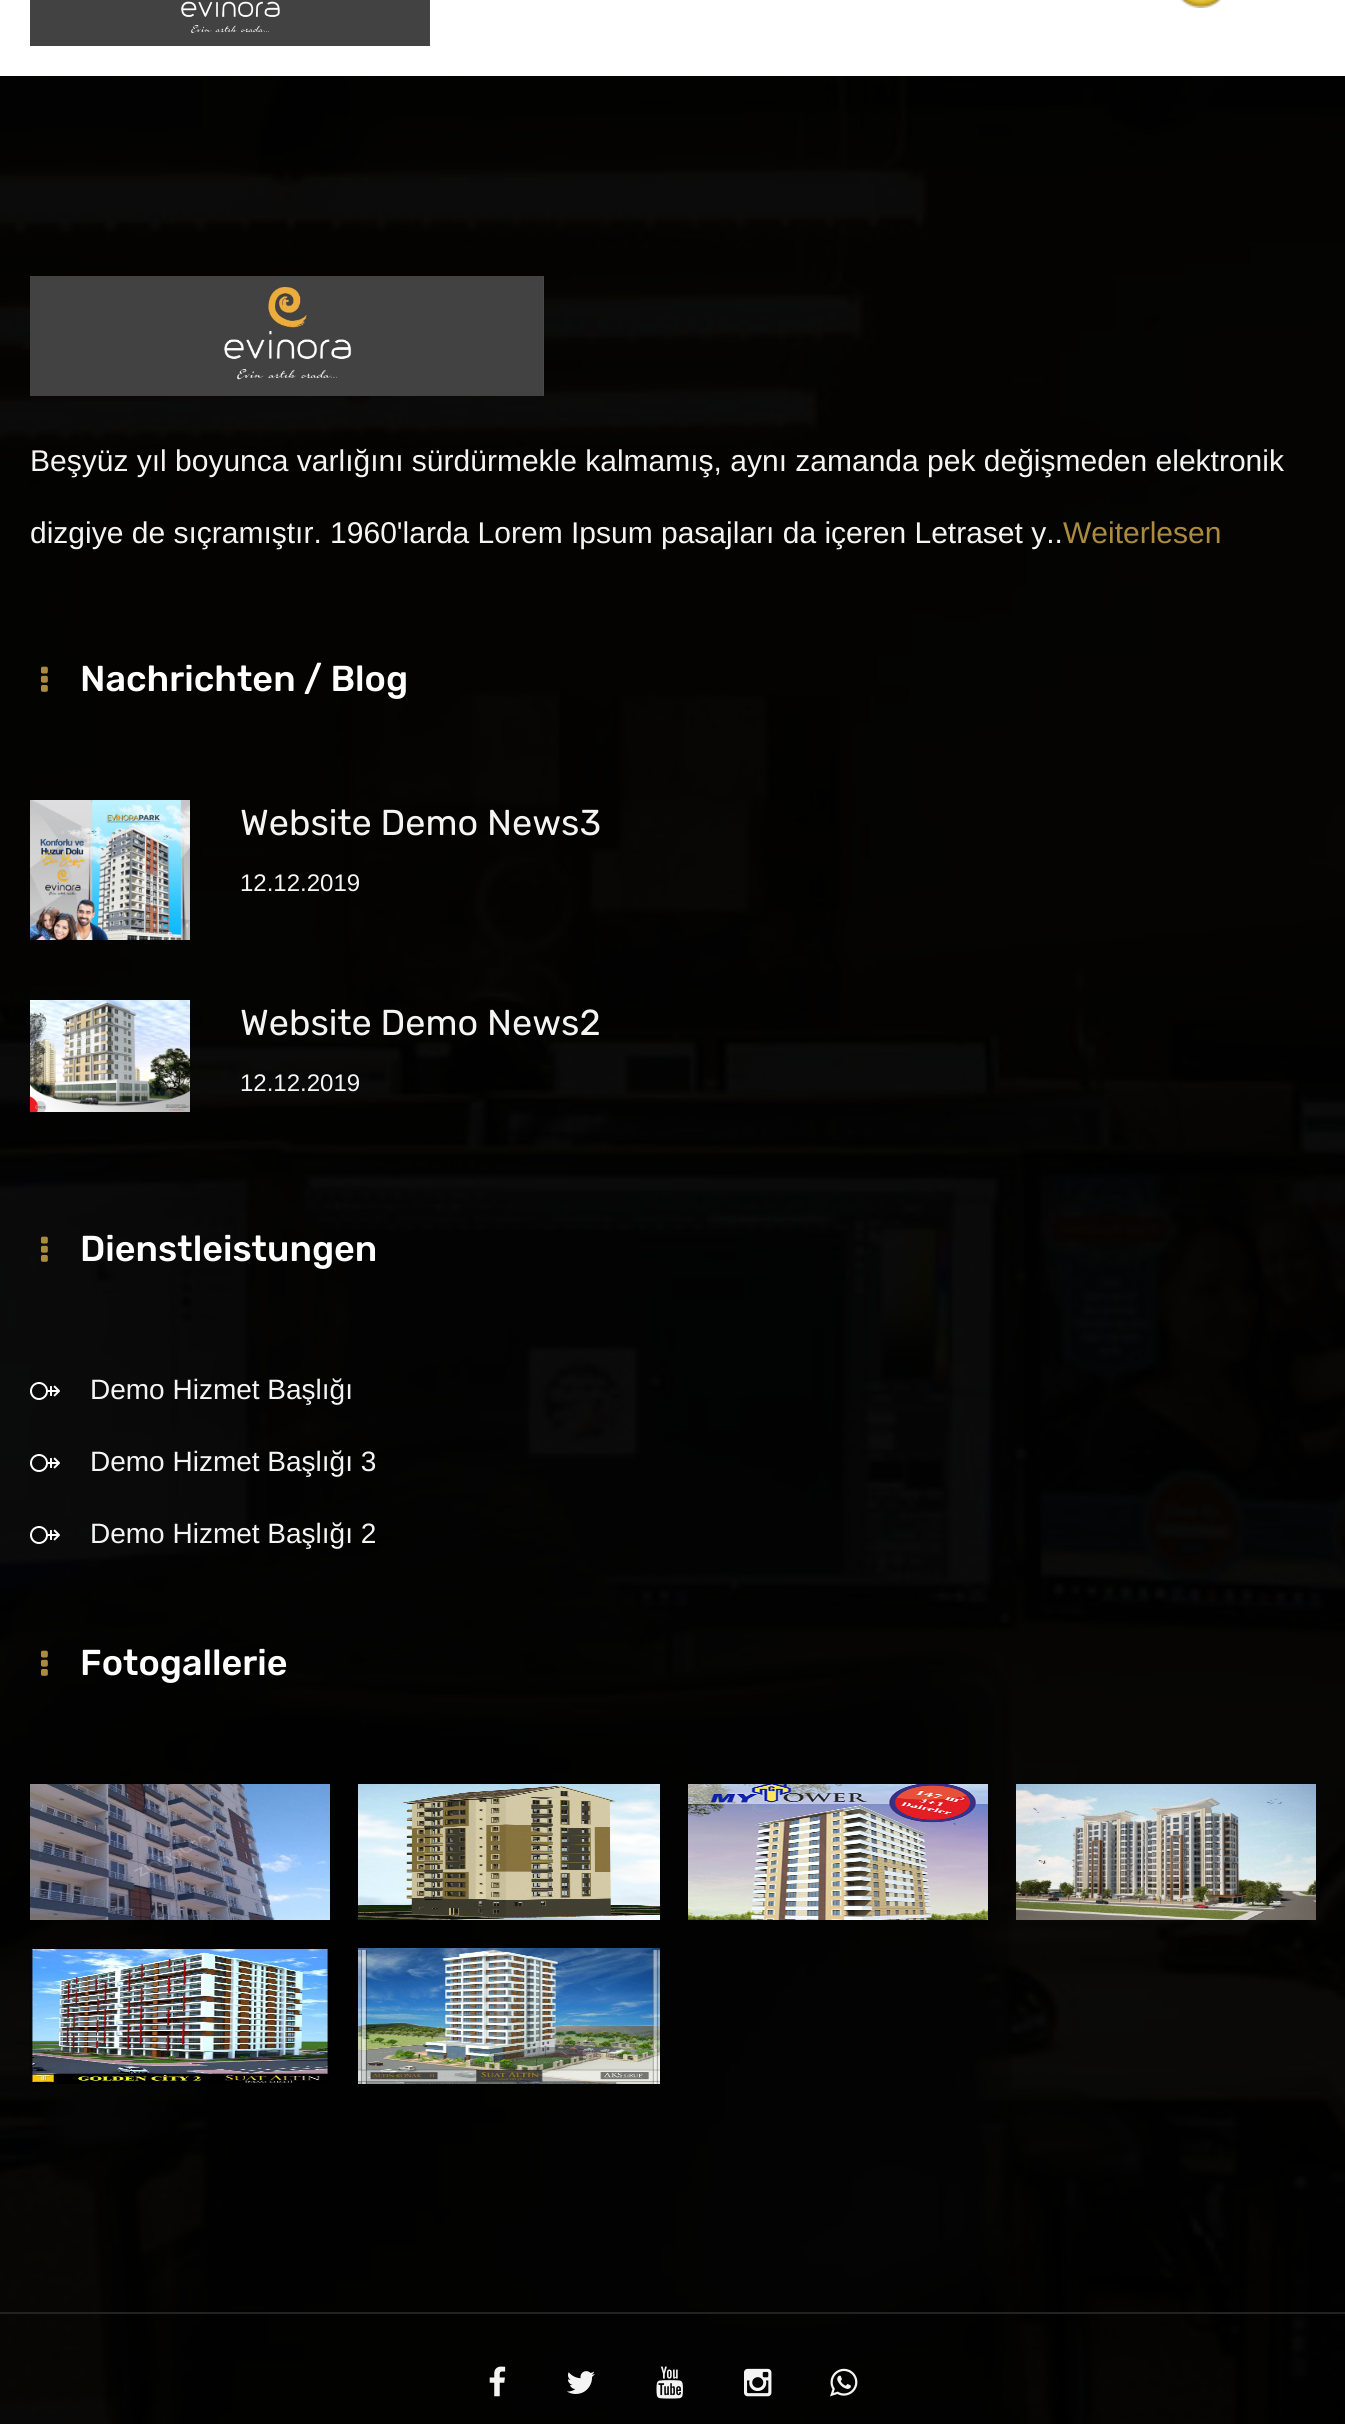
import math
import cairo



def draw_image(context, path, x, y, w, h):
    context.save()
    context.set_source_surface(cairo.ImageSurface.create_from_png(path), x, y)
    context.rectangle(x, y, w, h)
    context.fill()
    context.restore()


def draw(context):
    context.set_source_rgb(1, 1, 1)
    context.paint()
    draw_image(context, "images/1.png", 30, 0, 400, 46)
    draw_image(context, "images/2.png", 1180, 0, 42, 8)
    draw_image(context, "images/3.png", 0, 76, 1345, 2348)
    draw_image(context, "images/4.png", 30, 276, 514, 120)
    draw_image(context, "images/5.png", 40, 666, 8, 26)
    draw_image(context, "images/6.png", 30, 800, 160, 140)
    draw_image(context, "images/7.png", 30, 1000, 160, 112)
    draw_image(context, "images/8.png", 40, 1236, 8, 26)
    draw_image(context, "images/9.png", 30, 1382, 30, 18)
    draw_image(context, "images/10.png", 30, 1454, 30, 18)
    draw_image(context, "images/11.png", 30, 1526, 30, 18)
    draw_image(context, "images/12.png", 40, 1650, 8, 26)
    draw_image(context, "images/13.png", 30, 1784, 300, 136)
    draw_image(context, "images/14.png", 358, 1784, 302, 136)
    draw_image(context, "images/15.png", 688, 1784, 300, 136)
    draw_image(context, "images/16.png", 1016, 1784, 300, 136)
    draw_image(context, "images/17.png", 30, 1948, 299, 136)
    draw_image(context, "images/18.png", 358, 1948, 302, 136)
    context.set_source_rgb(34 / 255, 34 / 255, 34 / 255)
    context.rectangle(0, 2312, 1345, 2)
    context.fill()
    draw_image(context, "images/19.png", 489, 2366, 17, 31)
    draw_image(context, "images/20.png", 567, 2371, 28, 23)
    draw_image(context, "images/21.png", 656, 2366, 27, 33)
    draw_image(context, "images/22.png", 744, 2368, 28, 29)
    draw_image(context, "images/23.png", 830, 2368, 28, 29)
    context.select_font_face("Arimo")
    context.set_font_size(30)
    context.set_source_rgb(244 / 255, 244 / 255, 244 / 255)
    context.move_to(30, 471)
    context.show_text("Beşyüz yıl boyunca varlığını sürdürmekle kalmamış, aynı zamanda pek değişmeden elektronik")
    context.move_to(30, 543)
    context.show_text("dizgiye de sıçramıştır. 1960'larda Lorem Ipsum pasajları da içeren Letraset y..")
    context.set_source_rgb(171 / 255, 139 / 255, 64 / 255)
    context.move_to(1063, 543)
    context.show_text("Weiterlesen")
    context.select_font_face("Rubik Medium")
    context.set_font_size(36)
    context.set_source_rgb(1, 1, 1)
    context.move_to(80, 691)
    context.show_text("Nachrichten / Blog")
    context.select_font_face("Rubik")
    context.set_source_rgb(244 / 255, 244 / 255, 244 / 255)
    context.move_to(240, 835)
    context.show_text("Website Demo News3")
    context.select_font_face("Arimo")
    context.set_font_size(24)
    context.move_to(240, 891)
    context.show_text("12.12.2019")
    context.select_font_face("Rubik")
    context.set_font_size(36)
    context.move_to(240, 1035)
    context.show_text("Website Demo News2")
    context.select_font_face("Arimo")
    context.set_font_size(24)
    context.move_to(240, 1091)
    context.show_text("12.12.2019")
    context.select_font_face("Rubik Medium")
    context.set_font_size(36)
    context.set_source_rgb(1, 1, 1)
    context.move_to(80, 1261)
    context.show_text("Dienstleistungen")
    context.select_font_face("Arimo")
    context.set_font_size(28)
    context.set_source_rgb(244 / 255, 244 / 255, 244 / 255)
    context.move_to(90, 1399)
    context.show_text("Demo Hizmet Başlığı")
    context.move_to(90, 1471)
    context.show_text("Demo Hizmet Başlığı 3")
    context.move_to(90, 1543)
    context.show_text("Demo Hizmet Başlığı 2")
    context.select_font_face("Rubik Medium")
    context.set_font_size(36)
    context.set_source_rgb(1, 1, 1)
    context.move_to(80, 1675)
    context.show_text("Fotogallerie")


surface = cairo.ImageSurface(cairo.Format.RGB24, 1345, 2424)
context = cairo.Context(surface)
options = cairo.FontOptions()
options.set_hint_metrics(cairo.HintMetrics.OFF)
options.set_hint_style(cairo.HintStyle.NONE)
context.set_font_options(options)
context.set_miter_limit(4)
draw(context)
surface.write_to_png("out.png")
